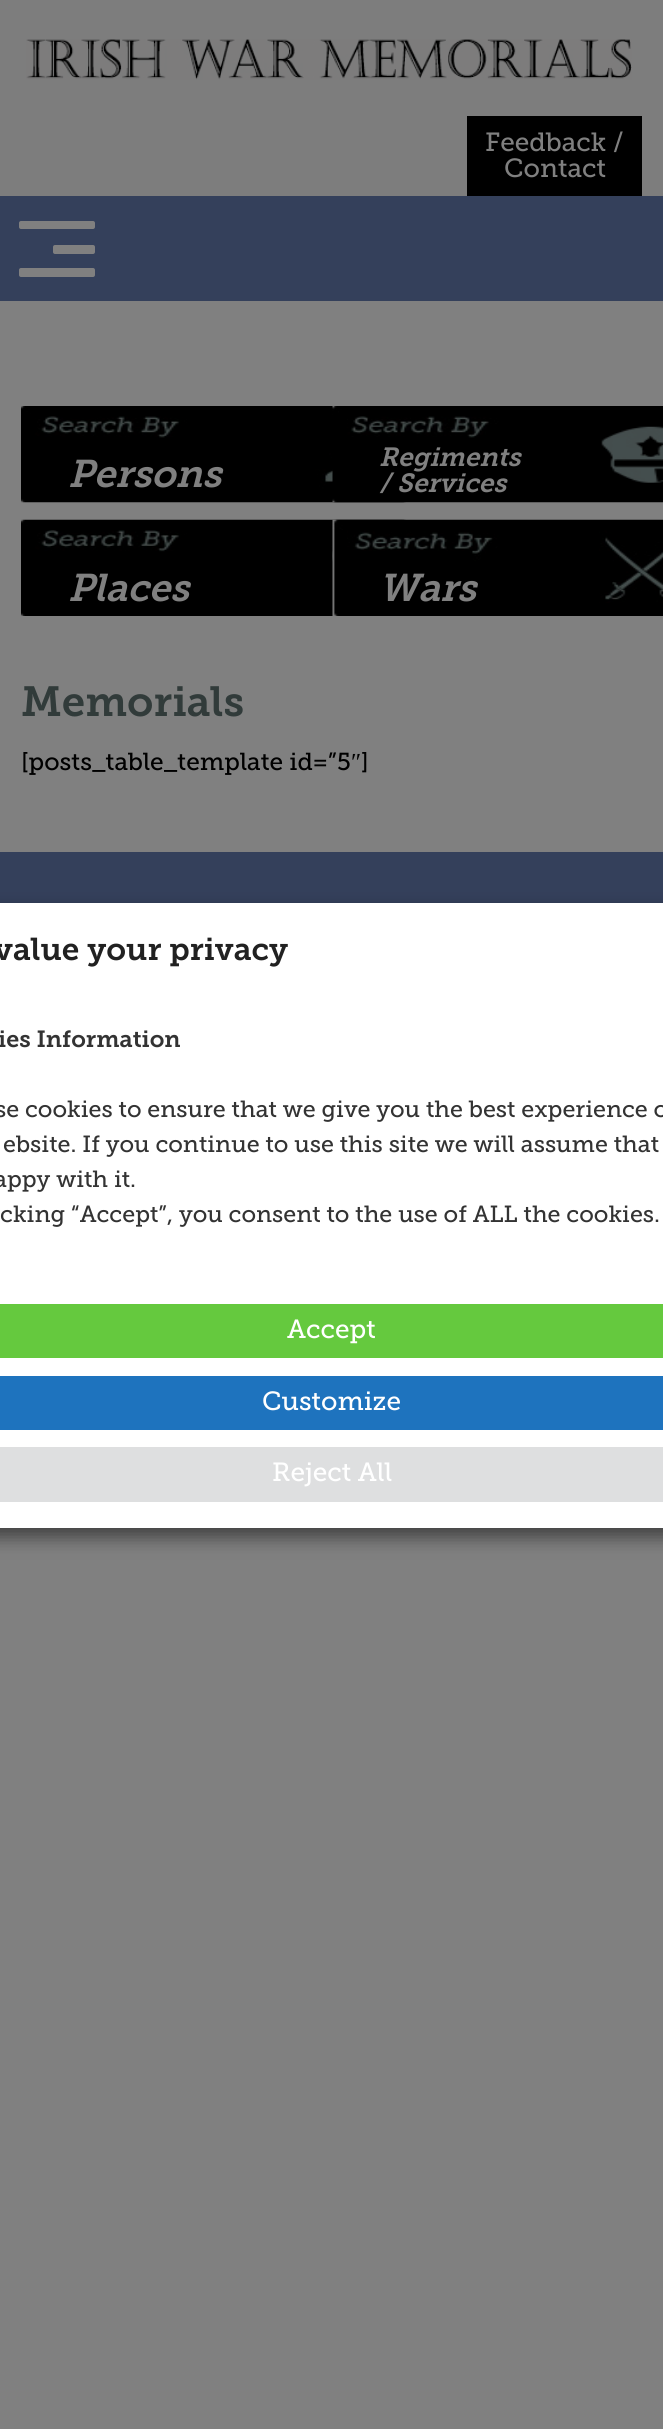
import math
import cairo



def rounded_rect(context, x, y, w, h, r):
    context.new_sub_path()
    for i, (u, v) in enumerate([(x + w - r, y + h - r), (x + r, y + h - r), (x + r, y + r), (x + w - r, y + r)]):
        context.arc(u, v, r, i * math.pi / 2, (i + 1) * math.pi / 2)
    context.close_path()


def draw_shadow(context, x, y, w, h, r, blur, alpha):
    context.push_group_with_content(cairo.Content.ALPHA)
    context.set_operator(cairo.Operator.SOURCE)
    for i in range(15, -16, -2):
        e = blur * i / 6
        if min(w, h) + 2 * e > 0:
            context.set_source_rgba(0, 0, 0, alpha * math.erfc((i - 1) / 8.5) / 2)
            rounded_rect(context, x - e, y - e, w + 2 * e, h + 2 * e, max(0, min(r + e + blur * .6, min(w, h) / 2 + e)))
            context.fill()
    context.mask(context.pop_group())


def draw_image(context, path, x, y, w, h):
    context.save()
    context.set_source_surface(cairo.ImageSurface.create_from_png(path), x, y)
    context.rectangle(x, y, w, h)
    context.fill()
    context.restore()


def draw(context):
    context.set_source_rgb(128 / 255, 128 / 255, 128 / 255)
    context.paint()
    context.set_source_rgb(125 / 255, 125 / 255, 125 / 255)
    context.rectangle(0, 0, 663, 196)
    context.fill()
    draw_image(context, "images/1.png", 26, 39, 606, 41)
    context.set_source_rgb(0, 0, 0)
    context.rectangle(467, 116, 175, 80)
    context.fill()
    context.set_source_rgb(52 / 255, 64 / 255, 91 / 255)
    context.rectangle(0, 196, 663, 105)
    context.fill()
    context.set_source_rgb(128 / 255, 128 / 255, 128 / 255)
    rounded_rect(context, 19, 221, 76, 8, 2)
    context.fill()
    rounded_rect(context, 53, 245, 42, 9, 2)
    context.fill()
    rounded_rect(context, 19, 268, 76, 9, 2)
    context.fill()
    draw_image(context, "images/2.png", 21, 406, 385, 97)
    draw_image(context, "images/3.png", 332, 406, 331, 97)
    draw_image(context, "images/4.png", 21, 519, 385, 97)
    draw_image(context, "images/5.png", 332, 519, 331, 97)
    context.set_source_rgb(52 / 255, 64 / 255, 91 / 255)
    context.rectangle(0, 852, 663, 51)
    context.fill()
    context.set_source_rgb(0, 0, 0)
    draw_shadow(context, -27, 912, 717, 625, 0, 9, 0.5)
    context.set_source_rgb(1, 1, 1)
    context.rectangle(0, 903, 663, 625)
    context.fill()
    context.set_source_rgb(101 / 255, 201 / 255, 62 / 255)
    context.rectangle(0, 1304, 663, 54)
    context.fill()
    context.set_source_rgb(30 / 255, 115 / 255, 190 / 255)
    context.rectangle(0, 1376, 663, 54)
    context.fill()
    context.set_source_rgb(222 / 255, 223 / 255, 224 / 255)
    context.rectangle(0, 1447, 663, 55)
    context.fill()
    context.select_font_face("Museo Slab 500")
    context.set_font_size(26.25)
    context.set_source_rgb(128 / 255, 128 / 255, 128 / 255)
    context.move_to(485, 151)
    context.show_text("Feedback /")
    context.move_to(504, 177)
    context.show_text("Contact")
    context.select_font_face("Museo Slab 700 SemiBold", cairo.FontSlant.ITALIC)
    context.set_font_size(38.5)
    context.move_to(68, 487)
    context.show_text("Persons")
    context.set_font_size(26.25)
    context.move_to(379, 466)
    context.show_text("Regiments")
    context.move_to(379, 492)
    context.show_text("/ Services")
    context.set_font_size(38.5)
    context.move_to(68, 601)
    context.show_text("Places")
    context.move_to(379, 601)
    context.show_text("Wars")
    context.select_font_face("Museo Slab 700 SemiBold")
    context.set_font_size(42)
    context.set_source_rgb(49 / 255, 59 / 255, 58 / 255)
    context.move_to(21, 716)
    context.show_text("Memorials")
    context.select_font_face("Museo Slab 500")
    context.set_font_size(24.5)
    context.set_source_rgb(0, 0, 0)
    context.move_to(21, 770)
    context.show_text("[posts_table_template id=”5")
    context.select_font_face("Liberation Serif")
    context.move_to(351, 770)
    context.show_text("″")
    context.select_font_face("Museo Slab 500")
    context.move_to(361, 770)
    context.show_text("]")
    context.select_font_face("Museo Slab 700 SemiBold")
    context.set_font_size(31.5)
    context.set_source_rgb(33 / 255, 33 / 255, 33 / 255)
    context.move_to(-6, 960)
    context.show_text("value your privacy")
    context.set_font_size(23.3)
    context.set_source_rgb(51 / 255, 51 / 255, 51 / 255)
    context.move_to(-2, 1047)
    context.show_text("ies Information")
    context.select_font_face("Museo Slab 500")
    context.move_to(-5, 1117)
    context.show_text("se cookies to ensure that we give you the best experience o")
    context.move_to(3, 1152)
    context.show_text("ebsite. If you continue to use this site we will assume that")
    context.move_to(-6, 1187)
    context.show_text("appy with it.")
    context.move_to(0, 1222)
    context.show_text("cking “Accept”, you consent to the use of ALL the cookies.")
    context.set_font_size(26.25)
    context.set_source_rgb(1, 1, 1)
    context.move_to(287, 1338)
    context.show_text("Accept")
    context.move_to(262, 1410)
    context.show_text("Customize")
    context.move_to(272, 1481)
    context.show_text("Reject All")


surface = cairo.ImageSurface(cairo.Format.RGB24, 663, 2429)
context = cairo.Context(surface)
options = cairo.FontOptions()
options.set_hint_metrics(cairo.HintMetrics.OFF)
options.set_hint_style(cairo.HintStyle.NONE)
context.set_font_options(options)
context.set_miter_limit(4)
draw(context)
surface.write_to_png("out.png")
